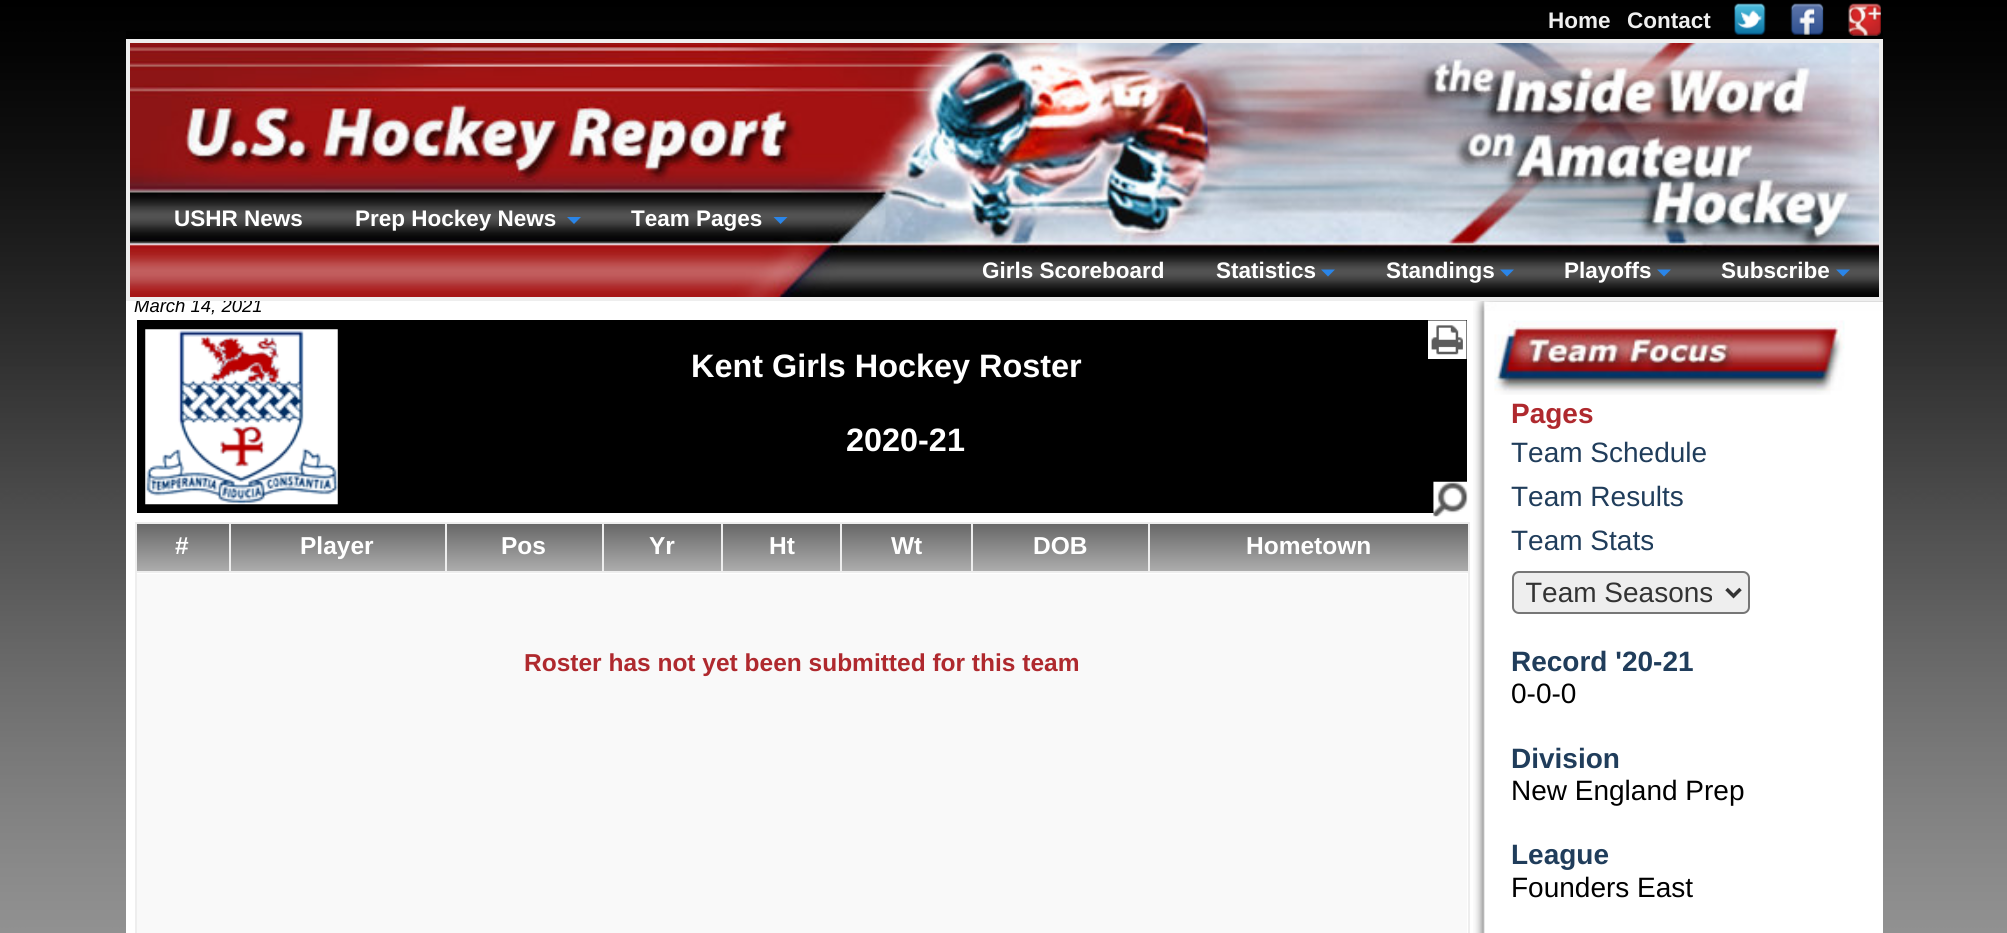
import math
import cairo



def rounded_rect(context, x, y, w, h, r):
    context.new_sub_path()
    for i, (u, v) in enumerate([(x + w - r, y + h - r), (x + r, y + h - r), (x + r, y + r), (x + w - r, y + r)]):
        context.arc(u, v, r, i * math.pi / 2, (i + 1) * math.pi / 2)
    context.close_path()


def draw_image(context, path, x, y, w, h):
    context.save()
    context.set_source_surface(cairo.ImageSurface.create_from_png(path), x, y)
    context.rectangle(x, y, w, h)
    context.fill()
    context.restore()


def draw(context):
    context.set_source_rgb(1, 1, 1)
    context.paint()
    draw_image(context, "images/1.png", 0, 0, 2007, 933)
    context.set_source_rgb(0, 0, 0)
    context.rectangle(126, 31, 1757, 8)
    context.fill()
    draw_image(context, "images/2.png", 1734, 3, 32, 32)
    draw_image(context, "images/3.png", 1790, 3, 34, 32)
    draw_image(context, "images/4.png", 1848, 3, 33, 33)
    draw_image(context, "images/5.png", 130, 43, 1749, 254)
    context.set_source_rgb(1, 1, 1)
    context.rectangle(126, 301, 1757, 632)
    context.fill()
    context.set_source_rgb(0, 0, 0)
    context.rectangle(137, 320, 1330, 193)
    context.fill()
    draw_image(context, "images/6.png", 145, 329, 193, 176)
    draw_image(context, "images/7.png", 1428, 320, 39, 39)
    draw_image(context, "images/8.png", 1433, 481, 35, 36)
    gradient = cairo.LinearGradient(182, 523, 182, 572)
    gradient.add_color_stop_rgba(0, 102 / 255, 102 / 255, 102 / 255, 1)
    gradient.add_color_stop_rgba(1, 174 / 255, 174 / 255, 174 / 255, 1)
    context.set_source(gradient)
    context.rectangle(137, 524, 92, 47)
    context.fill()
    context.set_source_rgb(238 / 255, 238 / 255, 238 / 255)
    context.rectangle(135, 522, 1335, 2)
    context.fill()
    context.rectangle(135, 571, 1335, 2)
    context.fill()
    context.rectangle(229, 522, 2, 50)
    context.fill()
    context.rectangle(135, 571, 2, 362)
    context.fill()
    context.rectangle(135, 522, 2, 50)
    context.fill()
    gradient = cairo.LinearGradient(336, 523, 336, 572)
    gradient.add_color_stop_rgba(0, 102 / 255, 102 / 255, 102 / 255, 1)
    gradient.add_color_stop_rgba(1, 174 / 255, 174 / 255, 174 / 255, 1)
    context.set_source(gradient)
    context.rectangle(231, 524, 214, 47)
    context.fill()
    context.set_source_rgb(238 / 255, 238 / 255, 238 / 255)
    context.rectangle(445, 522, 2, 50)
    context.fill()
    gradient = cairo.LinearGradient(522, 523, 522, 572)
    gradient.add_color_stop_rgba(0, 102 / 255, 102 / 255, 102 / 255, 1)
    gradient.add_color_stop_rgba(1, 174 / 255, 174 / 255, 174 / 255, 1)
    context.set_source(gradient)
    context.rectangle(447, 524, 155, 47)
    context.fill()
    context.set_source_rgb(238 / 255, 238 / 255, 238 / 255)
    context.rectangle(602, 522, 2, 50)
    context.fill()
    gradient = cairo.LinearGradient(662, 523, 662, 572)
    gradient.add_color_stop_rgba(0, 102 / 255, 102 / 255, 102 / 255, 1)
    gradient.add_color_stop_rgba(1, 174 / 255, 174 / 255, 174 / 255, 1)
    context.set_source(gradient)
    context.rectangle(604, 524, 117, 47)
    context.fill()
    context.set_source_rgb(238 / 255, 238 / 255, 238 / 255)
    context.rectangle(721, 522, 2, 50)
    context.fill()
    gradient = cairo.LinearGradient(781, 523, 781, 572)
    gradient.add_color_stop_rgba(0, 102 / 255, 102 / 255, 102 / 255, 1)
    gradient.add_color_stop_rgba(1, 174 / 255, 174 / 255, 174 / 255, 1)
    context.set_source(gradient)
    context.rectangle(723, 524, 117, 47)
    context.fill()
    context.set_source_rgb(238 / 255, 238 / 255, 238 / 255)
    context.rectangle(840, 522, 2, 50)
    context.fill()
    gradient = cairo.LinearGradient(906, 523, 906, 572)
    gradient.add_color_stop_rgba(0, 102 / 255, 102 / 255, 102 / 255, 1)
    gradient.add_color_stop_rgba(1, 174 / 255, 174 / 255, 174 / 255, 1)
    context.set_source(gradient)
    context.rectangle(842, 524, 129, 47)
    context.fill()
    context.set_source_rgb(238 / 255, 238 / 255, 238 / 255)
    context.rectangle(971, 522, 2, 50)
    context.fill()
    gradient = cairo.LinearGradient(1059, 523, 1059, 572)
    gradient.add_color_stop_rgba(0, 102 / 255, 102 / 255, 102 / 255, 1)
    gradient.add_color_stop_rgba(1, 174 / 255, 174 / 255, 174 / 255, 1)
    context.set_source(gradient)
    context.rectangle(973, 524, 175, 47)
    context.fill()
    context.set_source_rgb(238 / 255, 238 / 255, 238 / 255)
    context.rectangle(1148, 522, 2, 50)
    context.fill()
    gradient = cairo.LinearGradient(1307, 523, 1307, 572)
    gradient.add_color_stop_rgba(0, 102 / 255, 102 / 255, 102 / 255, 1)
    gradient.add_color_stop_rgba(1, 174 / 255, 174 / 255, 174 / 255, 1)
    context.set_source(gradient)
    context.rectangle(1150, 524, 318, 47)
    context.fill()
    context.set_source_rgb(238 / 255, 238 / 255, 238 / 255)
    context.rectangle(1468, 571, 2, 362)
    context.fill()
    context.rectangle(1468, 522, 2, 50)
    context.fill()
    context.set_source_rgb(249 / 255, 249 / 255, 249 / 255)
    context.rectangle(137, 574, 1330, 359)
    context.fill()
    draw_image(context, "images/9.png", 1473, 311, 12, 622)
    draw_image(context, "images/10.png", 1473, 301, 410, 10)
    draw_image(context, "images/11.png", 1494, 320, 351, 75)
    context.set_source_rgb(238 / 255, 238 / 255, 238 / 255)
    rounded_rect(context, 1513, 572, 236, 41, 6)
    context.fill_preserve()
    context.set_source_rgb(118 / 255, 118 / 255, 118 / 255)
    context.stroke()
    context.new_path()
    context.move_to(1726.5, 589)
    context.line_to(1733.5, 596)
    context.line_to(1740.5, 589)
    context.set_source_rgb(51 / 255, 51 / 255, 51 / 255)
    context.set_line_width(3.5)
    context.stroke()
    context.select_font_face("Liberation Sans", cairo.FontSlant.NORMAL, cairo.FontWeight.BOLD)
    context.set_font_size(22.5)
    context.set_source_rgb(239 / 255, 239 / 255, 239 / 255)
    context.move_to(1548, 28)
    context.show_text("Home")
    context.move_to(1627, 28)
    context.show_text("Contact")
    context.select_font_face("Liberation Sans", cairo.FontSlant.ITALIC)
    context.set_font_size(18.5)
    context.set_source_rgb(0, 0, 0)
    context.move_to(134, 312)
    context.show_text("March 14, 2021")
    context.rectangle(128, 41, 1753, 258)
    context.set_source_rgb(238 / 255, 238 / 255, 238 / 255)
    context.set_line_width(4)
    context.stroke()
    context.set_source_rgb(42 / 255, 133 / 255, 232 / 255)
    context.new_path()
    context.move_to(1836, 269.5)
    context.line_to(1850, 269.5)
    context.line_to(1843, 276.5)
    context.close_path()
    context.fill()
    context.new_path()
    context.move_to(1657, 269.5)
    context.line_to(1671, 269.5)
    context.line_to(1664, 276.5)
    context.close_path()
    context.fill()
    context.new_path()
    context.move_to(1500, 269.5)
    context.line_to(1514, 269.5)
    context.line_to(1507, 276.5)
    context.close_path()
    context.fill()
    context.new_path()
    context.move_to(1321, 269.5)
    context.line_to(1335, 269.5)
    context.line_to(1328, 276.5)
    context.close_path()
    context.fill()
    context.new_path()
    context.move_to(773.5, 217)
    context.line_to(787.5, 217)
    context.line_to(780.5, 224)
    context.close_path()
    context.fill()
    context.new_path()
    context.move_to(567, 217)
    context.line_to(581, 217)
    context.line_to(574, 224)
    context.close_path()
    context.fill()
    context.select_font_face("Liberation Sans", cairo.FontSlant.NORMAL, cairo.FontWeight.BOLD)
    context.set_font_size(22.5)
    context.set_source_rgb(1, 1, 1)
    context.move_to(1721, 278)
    context.show_text("Subscribe")
    context.move_to(1564, 278)
    context.show_text("Playoffs")
    context.move_to(1386, 278)
    context.show_text("Standings")
    context.move_to(1216, 278)
    context.show_text("Statistics")
    context.move_to(982, 278)
    context.show_text("Girls Scoreboard")
    context.move_to(631, 226)
    context.show_text("Team Pages")
    context.move_to(355, 226)
    context.show_text("Prep Hockey News")
    context.move_to(174, 226)
    context.show_text("USHR News")
    context.set_font_size(32.4)
    context.move_to(691, 377)
    context.show_text("Kent Girls Hockey Roster")
    context.move_to(846, 451)
    context.show_text("2020-21")
    context.set_font_size(24.5)
    context.move_to(175, 554)
    context.show_text("#")
    context.move_to(300, 554)
    context.show_text("Player")
    context.move_to(501, 554)
    context.show_text("Pos")
    context.move_to(649, 554)
    context.show_text("Yr")
    context.move_to(769, 554)
    context.show_text("Ht")
    context.move_to(891, 554)
    context.show_text("Wt")
    context.move_to(1033, 554)
    context.show_text("DOB")
    context.move_to(1246, 554)
    context.show_text("Hometown")
    context.set_source_rgb(175 / 255, 41 / 255, 46 / 255)
    context.move_to(524, 671)
    context.show_text("Roster has not yet been submitted for this team")
    context.set_font_size(28)
    context.move_to(1511, 423)
    context.show_text("Pages")
    context.select_font_face("Liberation Sans")
    context.set_source_rgb(32 / 255, 61 / 255, 91 / 255)
    context.move_to(1511, 462)
    context.show_text("Team Schedule")
    context.move_to(1511, 506)
    context.show_text("Team Results")
    context.move_to(1511, 550)
    context.show_text("Team Stats")
    context.save()
    context.rectangle(1526, 576, 189, 33)
    context.clip()
    context.set_source_rgb(51 / 255, 51 / 255, 51 / 255)
    context.move_to(1525, 602)
    context.show_text("Team Seasons")
    context.restore()
    context.select_font_face("Liberation Sans", cairo.FontSlant.NORMAL, cairo.FontWeight.BOLD)
    context.move_to(1511, 671)
    context.show_text("Record '20-21")
    context.select_font_face("Liberation Sans")
    context.set_source_rgb(0, 0, 0)
    context.move_to(1511, 703)
    context.show_text("0-0-0")
    context.select_font_face("Liberation Sans", cairo.FontSlant.NORMAL, cairo.FontWeight.BOLD)
    context.set_source_rgb(32 / 255, 61 / 255, 91 / 255)
    context.move_to(1511, 768)
    context.show_text("Division")
    context.select_font_face("Liberation Sans")
    context.set_source_rgb(0, 0, 0)
    context.move_to(1511, 800)
    context.show_text("New England Prep")
    context.select_font_face("Liberation Sans", cairo.FontSlant.NORMAL, cairo.FontWeight.BOLD)
    context.set_source_rgb(32 / 255, 61 / 255, 91 / 255)
    context.move_to(1511, 864)
    context.show_text("League")
    context.select_font_face("Liberation Sans")
    context.set_source_rgb(0, 0, 0)
    context.move_to(1511, 897)
    context.show_text("Founders East")


surface = cairo.ImageSurface(cairo.Format.RGB24, 2007, 933)
context = cairo.Context(surface)
options = cairo.FontOptions()
options.set_hint_metrics(cairo.HintMetrics.OFF)
options.set_hint_style(cairo.HintStyle.NONE)
context.set_font_options(options)
context.set_miter_limit(4)
draw(context)
surface.write_to_png("out.png")
